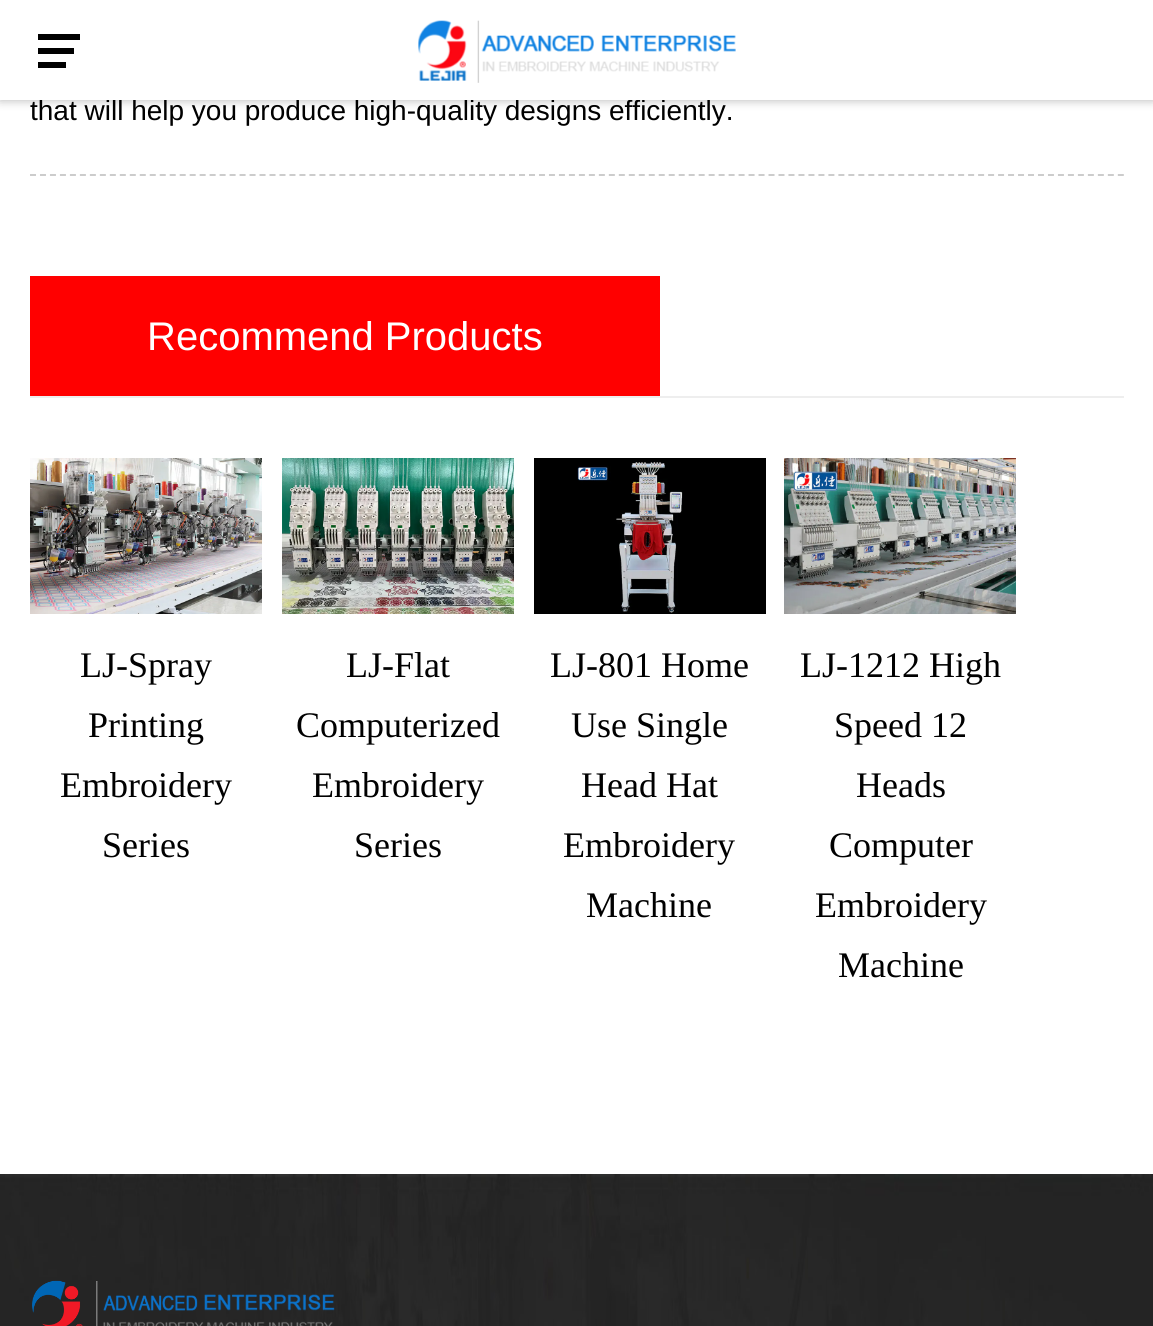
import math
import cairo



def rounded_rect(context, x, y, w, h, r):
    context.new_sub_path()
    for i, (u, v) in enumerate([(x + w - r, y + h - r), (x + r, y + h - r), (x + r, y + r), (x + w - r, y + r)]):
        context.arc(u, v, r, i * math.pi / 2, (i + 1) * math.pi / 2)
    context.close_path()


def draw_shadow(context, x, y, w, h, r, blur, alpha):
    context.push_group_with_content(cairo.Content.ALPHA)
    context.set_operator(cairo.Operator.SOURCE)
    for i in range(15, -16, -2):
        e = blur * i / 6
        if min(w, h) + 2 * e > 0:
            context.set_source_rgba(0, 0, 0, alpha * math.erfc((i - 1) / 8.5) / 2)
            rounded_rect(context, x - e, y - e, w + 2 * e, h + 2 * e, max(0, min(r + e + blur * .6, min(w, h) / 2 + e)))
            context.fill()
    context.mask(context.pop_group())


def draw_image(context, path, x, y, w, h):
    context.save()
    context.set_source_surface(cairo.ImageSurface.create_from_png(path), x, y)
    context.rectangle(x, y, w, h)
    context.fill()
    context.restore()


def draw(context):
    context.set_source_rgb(1, 1, 1)
    context.paint()
    context.set_source_rgb(0, 0, 0)
    draw_shadow(context, 0, 0, 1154, 100, 0, 5, 0.3)
    context.new_path()
    context.move_to(30, 175)
    context.line_to(1124, 175)
    context.set_source_rgb(204 / 255, 204 / 255, 204 / 255)
    context.set_dash([6, 3.98])
    context.stroke()
    context.set_source_rgb(238 / 255, 238 / 255, 238 / 255)
    context.rectangle(30, 396, 1094, 2)
    context.fill()
    context.set_source_rgb(1, 0, 0)
    context.rectangle(30, 276, 630, 120)
    context.fill()
    draw_image(context, "images/2.png", 30, 458, 232, 156)
    draw_image(context, "images/3.png", 282, 458, 232, 156)
    draw_image(context, "images/4.png", 534, 458, 232, 156)
    draw_image(context, "images/5.png", 784, 458, 232, 156)
    draw_image(context, "images/6.png", 0, 1174, 1153, 152)
    draw_image(context, "images/7.png", 32, 1280, 303, 46)
    context.select_font_face("Liberation Sans")
    context.set_font_size(28)
    context.set_source_rgb(0, 0, 0)
    context.move_to(30, 120)
    context.show_text("that will help you produce high-quality designs efficiently.")
    context.set_source_rgb(1, 1, 1)
    context.rectangle(0, 0, 1153, 100)
    context.fill()
    context.set_source_rgb(0, 0, 0)
    context.rectangle(38, 62, 28, 6)
    context.fill()
    context.rectangle(38, 34, 42, 6)
    context.fill()
    context.rectangle(38, 48, 36, 6)
    context.fill()
    draw_image(context, "images/1.png", 418, 20, 318, 63)
    context.set_font_size(40)
    context.set_source_rgb(1, 1, 1)
    context.move_to(147, 350)
    context.show_text("Recommend Products")
    context.select_font_face("Liberation Serif")
    context.set_font_size(36)
    context.set_source_rgb(0, 0, 0)
    context.move_to(80, 677)
    context.show_text("LJ-Spray")
    context.move_to(88, 737)
    context.show_text("Printing")
    context.move_to(60, 797)
    context.show_text("Embroidery")
    context.move_to(102, 857)
    context.show_text("Series")
    context.move_to(346, 677)
    context.show_text("LJ-Flat")
    context.move_to(296, 737)
    context.show_text("Computerized")
    context.move_to(312, 797)
    context.show_text("Embroidery")
    context.move_to(354, 857)
    context.show_text("Series")
    context.move_to(550, 677)
    context.show_text("LJ-801 Home")
    context.move_to(571, 737)
    context.show_text("Use Single")
    context.move_to(581, 797)
    context.show_text("Head Hat")
    context.move_to(563, 857)
    context.show_text("Embroidery")
    context.move_to(586, 917)
    context.show_text("Machine")
    context.move_to(800, 677)
    context.show_text("LJ-1212 High")
    context.move_to(834, 737)
    context.show_text("Speed 12")
    context.move_to(856, 797)
    context.show_text("Heads")
    context.move_to(829, 857)
    context.show_text("Computer")
    context.move_to(815, 917)
    context.show_text("Embroidery")
    context.move_to(838, 977)
    context.show_text("Machine")


surface = cairo.ImageSurface(cairo.Format.RGB24, 1153, 1326)
context = cairo.Context(surface)
options = cairo.FontOptions()
options.set_hint_metrics(cairo.HintMetrics.OFF)
options.set_hint_style(cairo.HintStyle.NONE)
context.set_font_options(options)
context.set_miter_limit(4)
draw(context)
surface.write_to_png("out.png")
